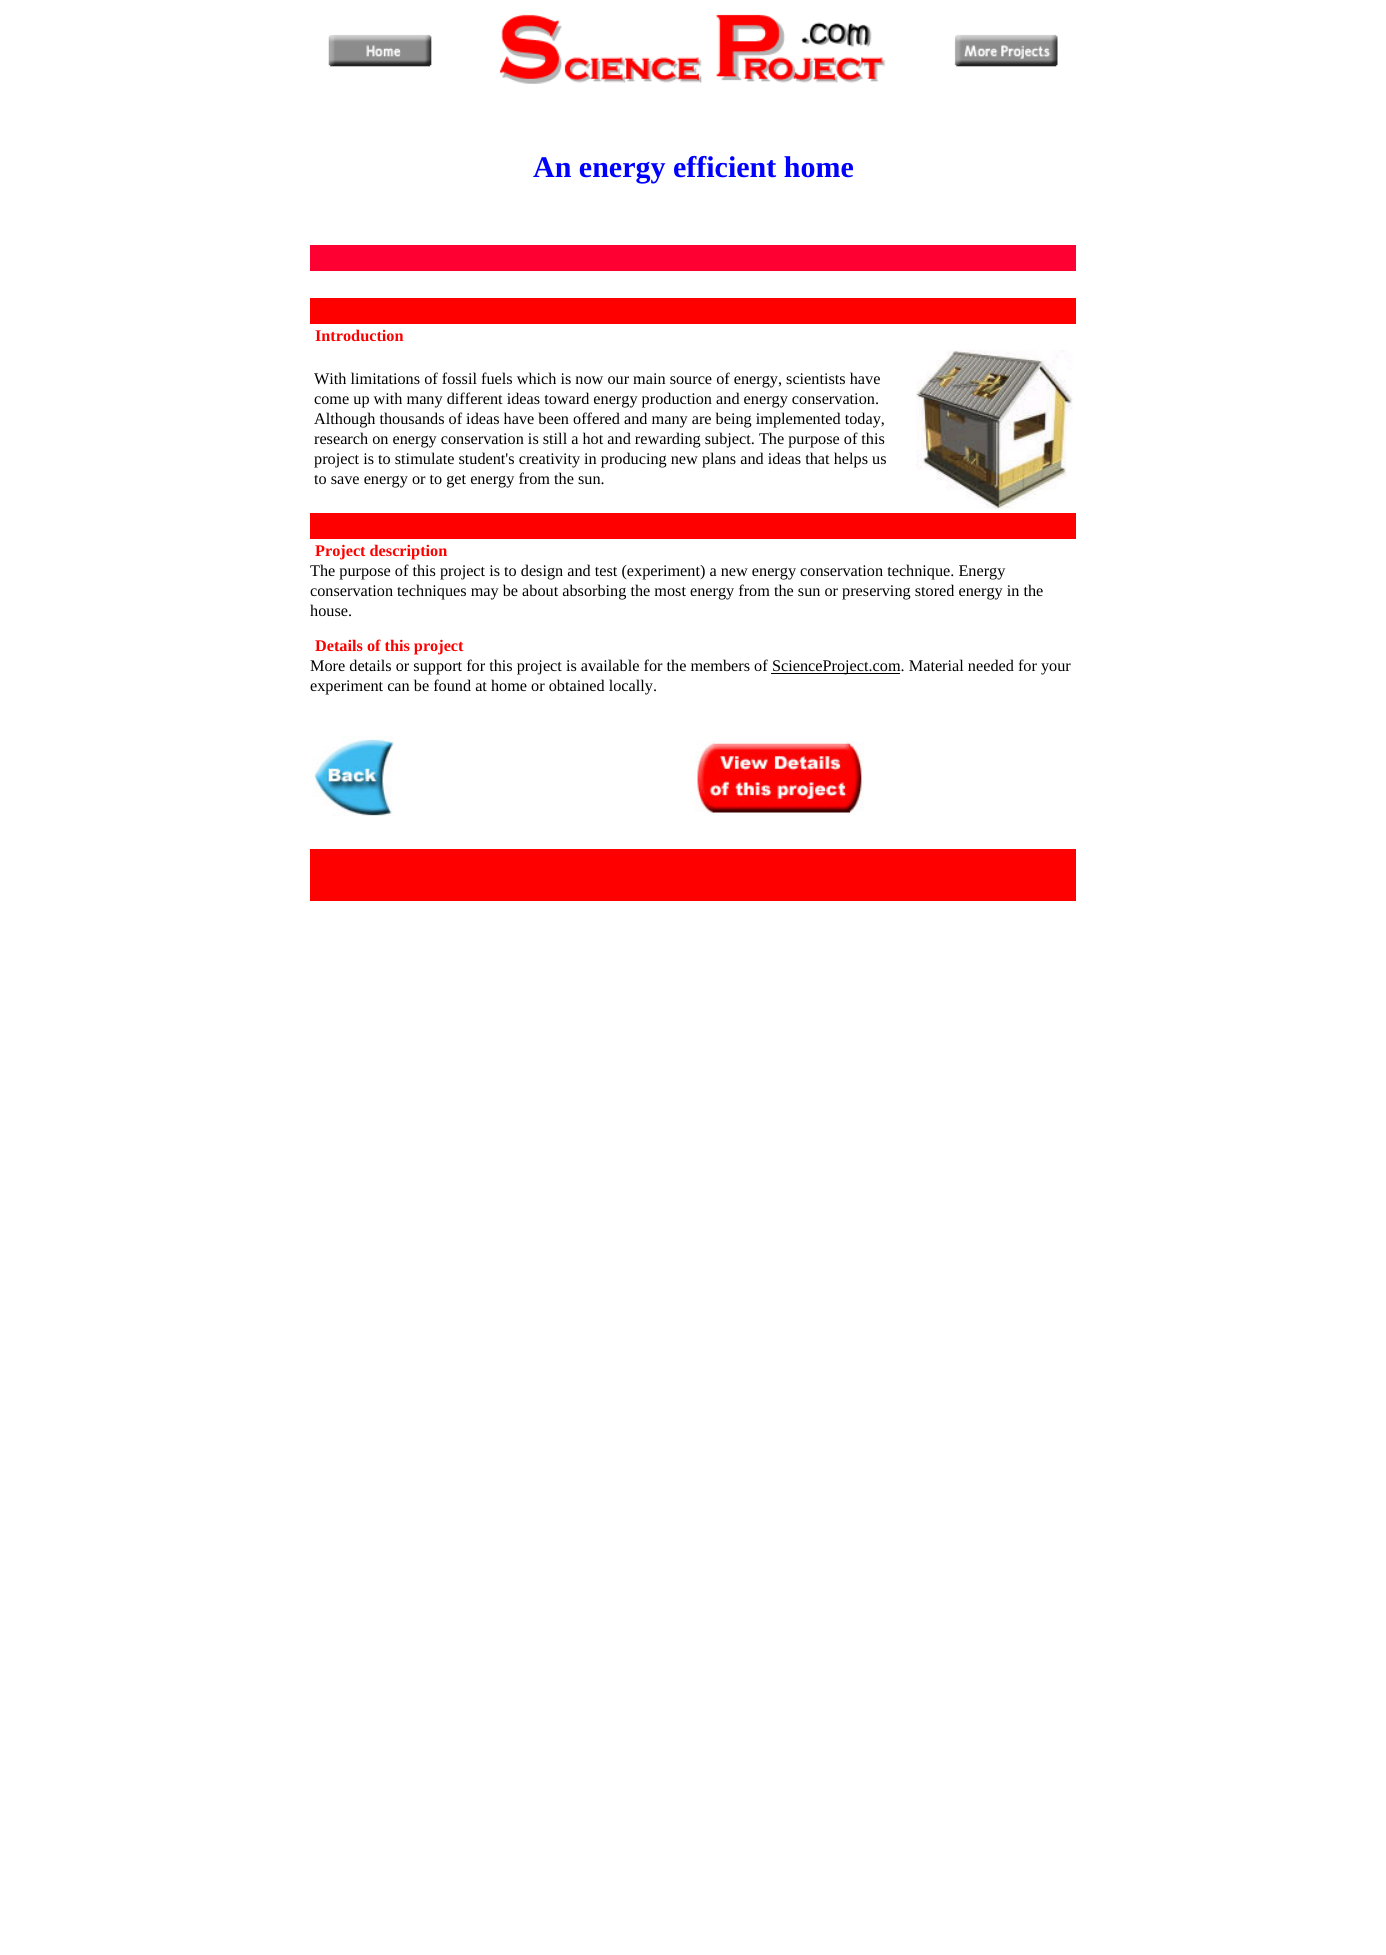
import math
import cairo



def draw_image(context, path, x, y, w, h):
    context.save()
    context.set_source_surface(cairo.ImageSurface.create_from_png(path), x, y)
    context.rectangle(x, y, w, h)
    context.fill()
    context.restore()


def draw(context):
    context.set_source_rgb(1, 1, 1)
    context.paint()
    draw_image(context, "images/1.png", 328, 34, 104, 33)
    draw_image(context, "images/2.png", 499, 14, 387, 70)
    draw_image(context, "images/3.png", 954, 34, 104, 33)
    context.set_source_rgb(1, 0, 51 / 255)
    context.rectangle(310, 245, 766, 26)
    context.fill()
    context.set_source_rgb(1, 0, 0)
    context.rectangle(310, 298, 766, 26)
    context.fill()
    draw_image(context, "images/4.png", 916, 350, 157, 159)
    context.rectangle(310, 513, 766, 26)
    context.fill()
    context.set_source_rgb(0, 0, 0)
    context.rectangle(771, 673, 129, 1)
    context.fill()
    draw_image(context, "images/5.png", 312, 736, 82, 80)
    draw_image(context, "images/6.png", 695, 741, 169, 74)
    context.set_source_rgb(1, 0, 0)
    context.rectangle(310, 849, 766, 52)
    context.fill()
    context.select_font_face("Liberation Serif", cairo.FontSlant.NORMAL, cairo.FontWeight.BOLD)
    context.set_font_size(30)
    context.set_source_rgb(0, 0, 1)
    context.move_to(533, 177)
    context.show_text("An energy efficient home")
    context.set_font_size(16.25)
    context.set_source_rgb(1, 0, 0)
    context.move_to(315, 341)
    context.show_text("Introduction")
    context.select_font_face("Liberation Serif")
    context.set_source_rgb(0, 0, 0)
    context.move_to(314, 384)
    context.show_text("With limitations of fossil fuels which is now our main source of energy, scientists have")
    context.move_to(314, 404)
    context.show_text("come up with many different ideas toward energy production and energy conservation.")
    context.move_to(314, 424)
    context.show_text("Although thousands of ideas have been offered and many are being implemented today,")
    context.move_to(314, 444)
    context.show_text("research on energy conservation is still a hot and rewarding subject. The purpose of this")
    context.move_to(314, 464)
    context.show_text("project is to stimulate student's creativity in producing new plans and ideas that helps us")
    context.move_to(314, 484)
    context.show_text("to save energy or to get energy from the sun.")
    context.select_font_face("Liberation Serif", cairo.FontSlant.NORMAL, cairo.FontWeight.BOLD)
    context.set_source_rgb(1, 0, 0)
    context.move_to(315, 556)
    context.show_text("Project description")
    context.select_font_face("Liberation Serif")
    context.set_source_rgb(0, 0, 0)
    context.move_to(310, 576)
    context.show_text("The purpose of this project is to design and test (experiment) a new energy conservation technique. Energy")
    context.move_to(310, 596)
    context.show_text("conservation techniques may be about absorbing the most energy from the sun or preserving stored energy in the")
    context.move_to(310, 616)
    context.show_text("house.")
    context.select_font_face("Liberation Serif", cairo.FontSlant.NORMAL, cairo.FontWeight.BOLD)
    context.set_source_rgb(1, 0, 0)
    context.move_to(315, 651)
    context.show_text("Details of this project")
    context.select_font_face("Liberation Serif")
    context.set_source_rgb(0, 0, 0)
    context.move_to(310, 671)
    context.show_text("More details or support for this project is available for the members of")
    context.move_to(772, 671)
    context.show_text("ScienceProject.com. Material needed for your")
    context.move_to(310, 691)
    context.show_text("experiment can be found at home or obtained locally.")


surface = cairo.ImageSurface(cairo.Format.RGB24, 1386, 1955)
context = cairo.Context(surface)
options = cairo.FontOptions()
options.set_hint_metrics(cairo.HintMetrics.OFF)
options.set_hint_style(cairo.HintStyle.NONE)
context.set_font_options(options)
context.set_miter_limit(4)
draw(context)
surface.write_to_png("out.png")
